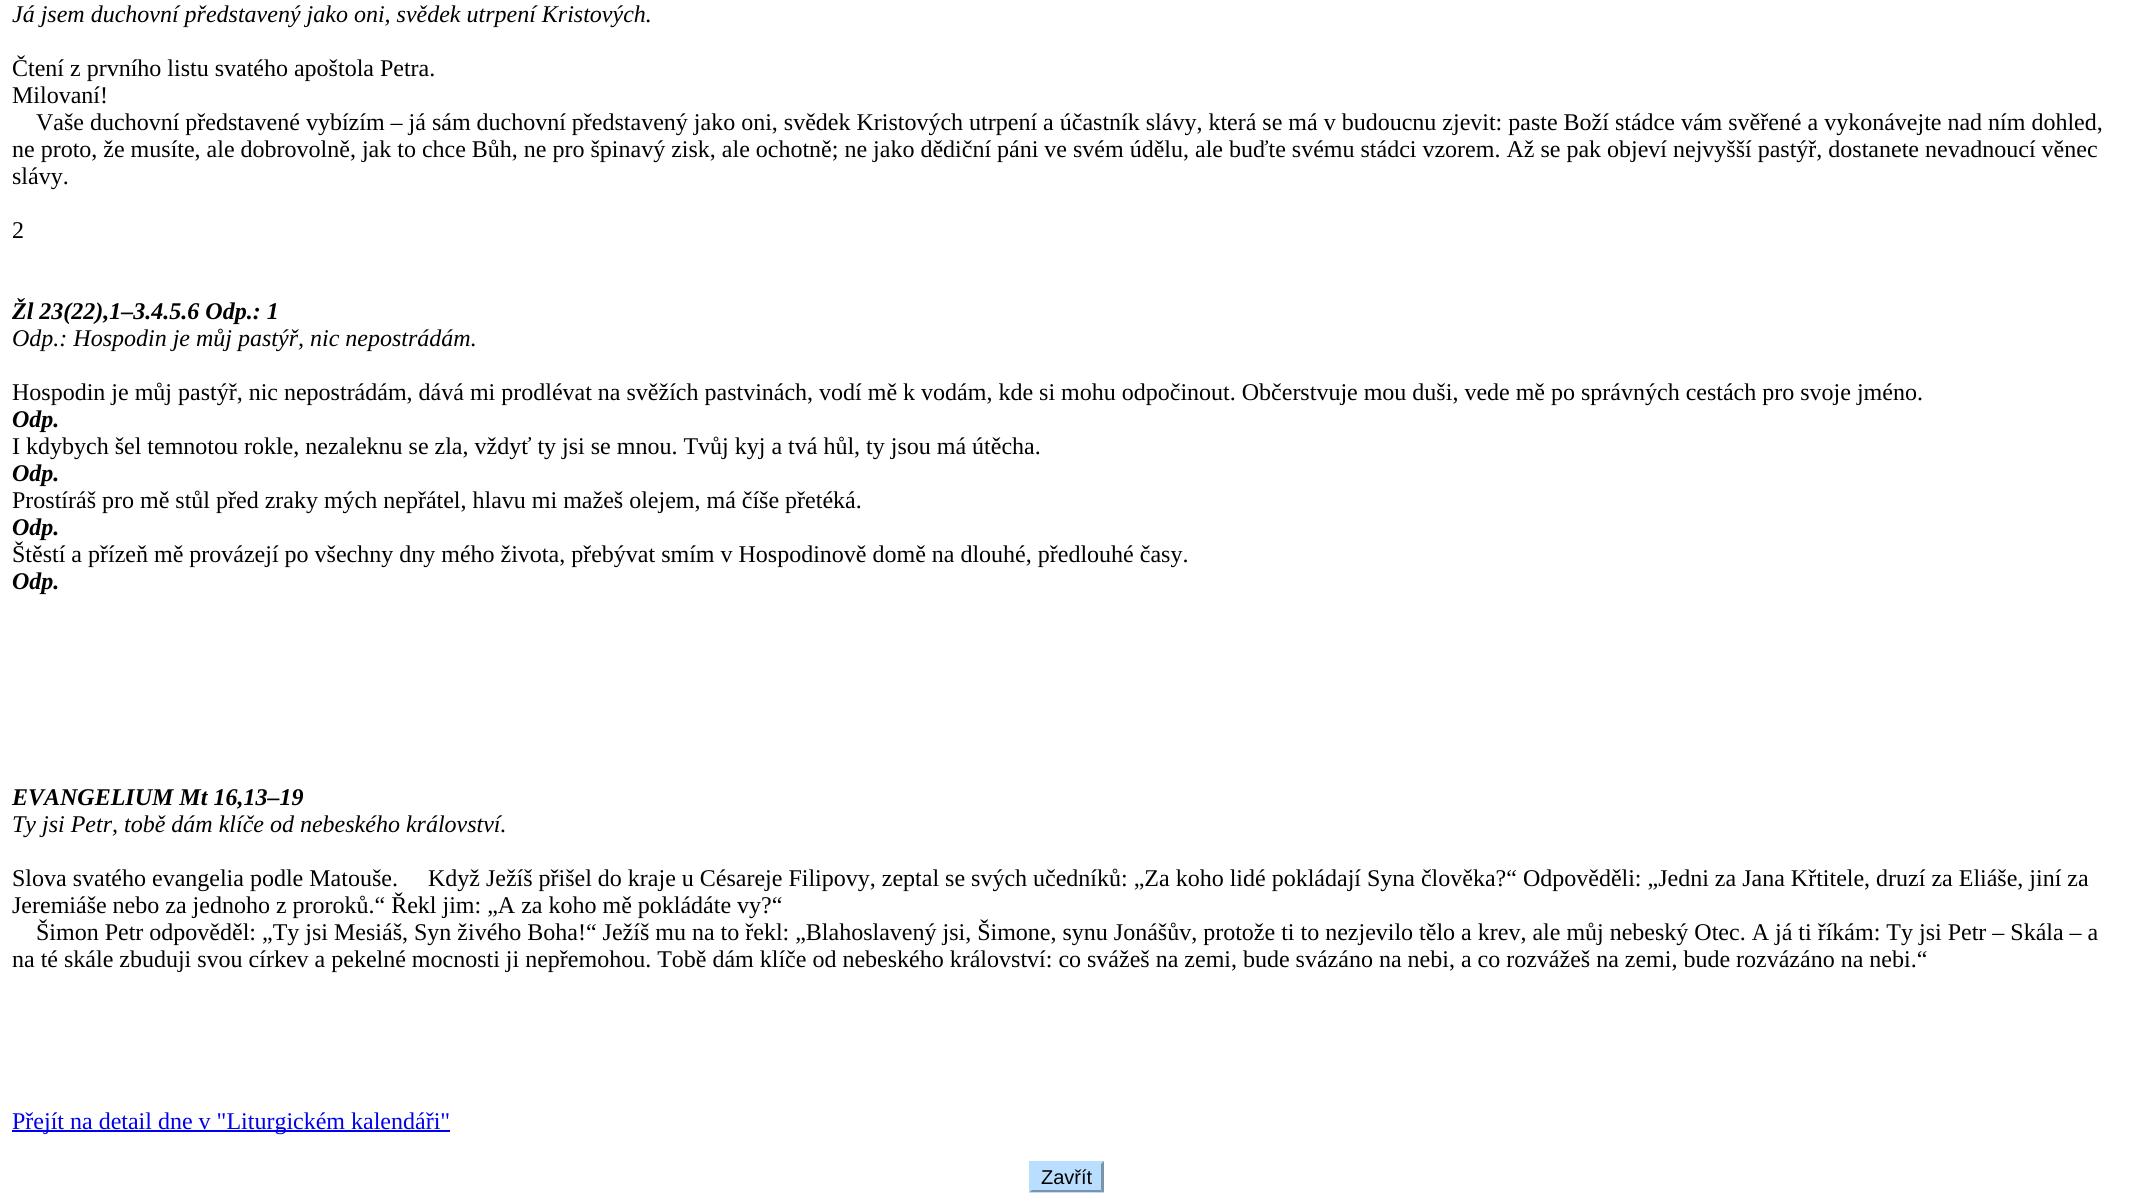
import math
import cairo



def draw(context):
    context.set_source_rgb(1, 1, 1)
    context.paint()
    context.set_source_rgb(0, 0, 238 / 255)
    context.rectangle(12, 1130, 438, 2)
    context.fill()
    context.set_source_rgb(185 / 255, 222 / 255, 1)
    context.rectangle(1029, 1161, 75, 32)
    context.fill()
    context.set_source_rgb(123 / 255, 148 / 255, 170 / 255)
    context.new_path()
    context.move_to(1104, 1161)
    context.line_to(1104, 1192.5)
    context.line_to(1101, 1189.5)
    context.line_to(1101, 1164)
    context.close_path()
    context.fill()
    context.new_path()
    context.move_to(1104, 1192)
    context.line_to(1029, 1192)
    context.line_to(1032, 1190)
    context.line_to(1101, 1190)
    context.close_path()
    context.fill()
    context.set_source_rgb(185 / 255, 222 / 255, 1)
    context.new_path()
    context.move_to(1029, 1192.5)
    context.line_to(1029, 1161)
    context.line_to(1032, 1164)
    context.line_to(1032, 1189.5)
    context.close_path()
    context.fill()
    context.select_font_face("Liberation Serif", cairo.FontSlant.ITALIC)
    context.set_font_size(24)
    context.set_source_rgb(0, 0, 0)
    context.move_to(12, 22)
    context.show_text("Já jsem duchovní představený jako oni, svědek utrpení Kristových.")
    context.select_font_face("Liberation Serif")
    context.move_to(12, 76)
    context.show_text("Čtení z prvního listu svatého apoštola Petra.")
    context.move_to(12, 103)
    context.show_text("Milovaní!")
    context.move_to(36, 130)
    context.show_text("Vaše duchovní představené vybízím – já sám duchovní představený jako oni, svědek Kristových utrpení a účastník slávy, která se má v budoucnu zjevit: paste Boží stádce vám svěřené a vykonávejte nad ním dohled,")
    context.move_to(12, 157)
    context.show_text("ne proto, že musíte, ale dobrovolně, jak to chce Bůh, ne pro špinavý zisk, ale ochotně; ne jako dědiční páni ve svém údělu, ale buďte svému stádci vzorem. Až se pak objeví nejvyšší pastýř, dostanete nevadnoucí věnec")
    context.move_to(12, 184)
    context.show_text("slávy.")
    context.move_to(12, 238)
    context.show_text("2")
    context.select_font_face("Liberation Serif", cairo.FontSlant.ITALIC, cairo.FontWeight.BOLD)
    context.move_to(12, 319)
    context.show_text("Žl 23(22),1–3.4.5.6 Odp.: 1")
    context.select_font_face("Liberation Serif", cairo.FontSlant.ITALIC)
    context.move_to(12, 346)
    context.show_text("Odp.: Hospodin je můj pastýř, nic nepostrádám.")
    context.select_font_face("Liberation Serif")
    context.move_to(12, 400)
    context.show_text("Hospodin je můj pastýř, nic nepostrádám, dává mi prodlévat na svěžích pastvinách, vodí mě k vodám, kde si mohu odpočinout. Občerstvuje mou duši, vede mě po správných cestách pro svoje jméno.")
    context.select_font_face("Liberation Serif", cairo.FontSlant.ITALIC, cairo.FontWeight.BOLD)
    context.move_to(12, 427)
    context.show_text("Odp.")
    context.select_font_face("Liberation Serif")
    context.move_to(12, 454)
    context.show_text("I kdybych šel temnotou rokle, nezaleknu se zla, vždyť ty jsi se mnou. Tvůj kyj a tvá hůl, ty jsou má útěcha.")
    context.select_font_face("Liberation Serif", cairo.FontSlant.ITALIC, cairo.FontWeight.BOLD)
    context.move_to(12, 481)
    context.show_text("Odp.")
    context.select_font_face("Liberation Serif")
    context.move_to(12, 508)
    context.show_text("Prostíráš pro mě stůl před zraky mých nepřátel, hlavu mi mažeš olejem, má číše přetéká.")
    context.select_font_face("Liberation Serif", cairo.FontSlant.ITALIC, cairo.FontWeight.BOLD)
    context.move_to(12, 535)
    context.show_text("Odp.")
    context.select_font_face("Liberation Serif")
    context.move_to(12, 562)
    context.show_text("Štěstí a přízeň mě provázejí po všechny dny mého života, přebývat smím v Hospodinově domě na dlouhé, předlouhé časy.")
    context.select_font_face("Liberation Serif", cairo.FontSlant.ITALIC, cairo.FontWeight.BOLD)
    context.move_to(12, 589)
    context.show_text("Odp.")
    context.move_to(12, 805)
    context.show_text("EVANGELIUM Mt 16,13–19")
    context.select_font_face("Liberation Serif", cairo.FontSlant.ITALIC)
    context.move_to(12, 832)
    context.show_text("Ty jsi Petr, tobě dám klíče od nebeského království.")
    context.select_font_face("Liberation Serif")
    context.move_to(12, 886)
    context.show_text("Slova svatého evangelia podle Matouše.     Když Ježíš přišel do kraje u Césareje Filipovy, zeptal se svých učedníků: „Za koho lidé pokládají Syna člověka?“ Odpověděli: „Jedni za Jana Křtitele, druzí za Eliáše, jiní za")
    context.move_to(12, 913)
    context.show_text("Jeremiáše nebo za jednoho z proroků.“ Řekl jim: „A za koho mě pokládáte vy?“")
    context.move_to(36, 940)
    context.show_text("Šimon Petr odpověděl: „Ty jsi Mesiáš, Syn živého Boha!“ Ježíš mu na to řekl: „Blahoslavený jsi, Šimone, synu Jonášův, protože ti to nezjevilo tělo a krev, ale můj nebeský Otec. A já ti říkám: Ty jsi Petr – Skála – a")
    context.move_to(12, 967)
    context.show_text("na té skále zbuduji svou církev a pekelné mocnosti ji nepřemohou. Tobě dám klíče od nebeského království: co svážeš na zemi, bude svázáno na nebi, a co rozvážeš na zemi, bude rozvázáno na nebi.“")
    context.set_source_rgb(0, 0, 238 / 255)
    context.move_to(12, 1129)
    context.show_text("Přejít na detail dne v \"Liturgickém kalendáři\"")
    context.select_font_face("Liberation Sans")
    context.set_font_size(20)
    context.set_source_rgb(0, 0, 0)
    context.move_to(1041, 1184)
    context.show_text("Zavřít")


surface = cairo.ImageSurface(cairo.Format.RGB24, 2132, 1200)
context = cairo.Context(surface)
options = cairo.FontOptions()
options.set_hint_metrics(cairo.HintMetrics.OFF)
options.set_hint_style(cairo.HintStyle.NONE)
context.set_font_options(options)
context.set_miter_limit(4)
draw(context)
surface.write_to_png("out.png")
